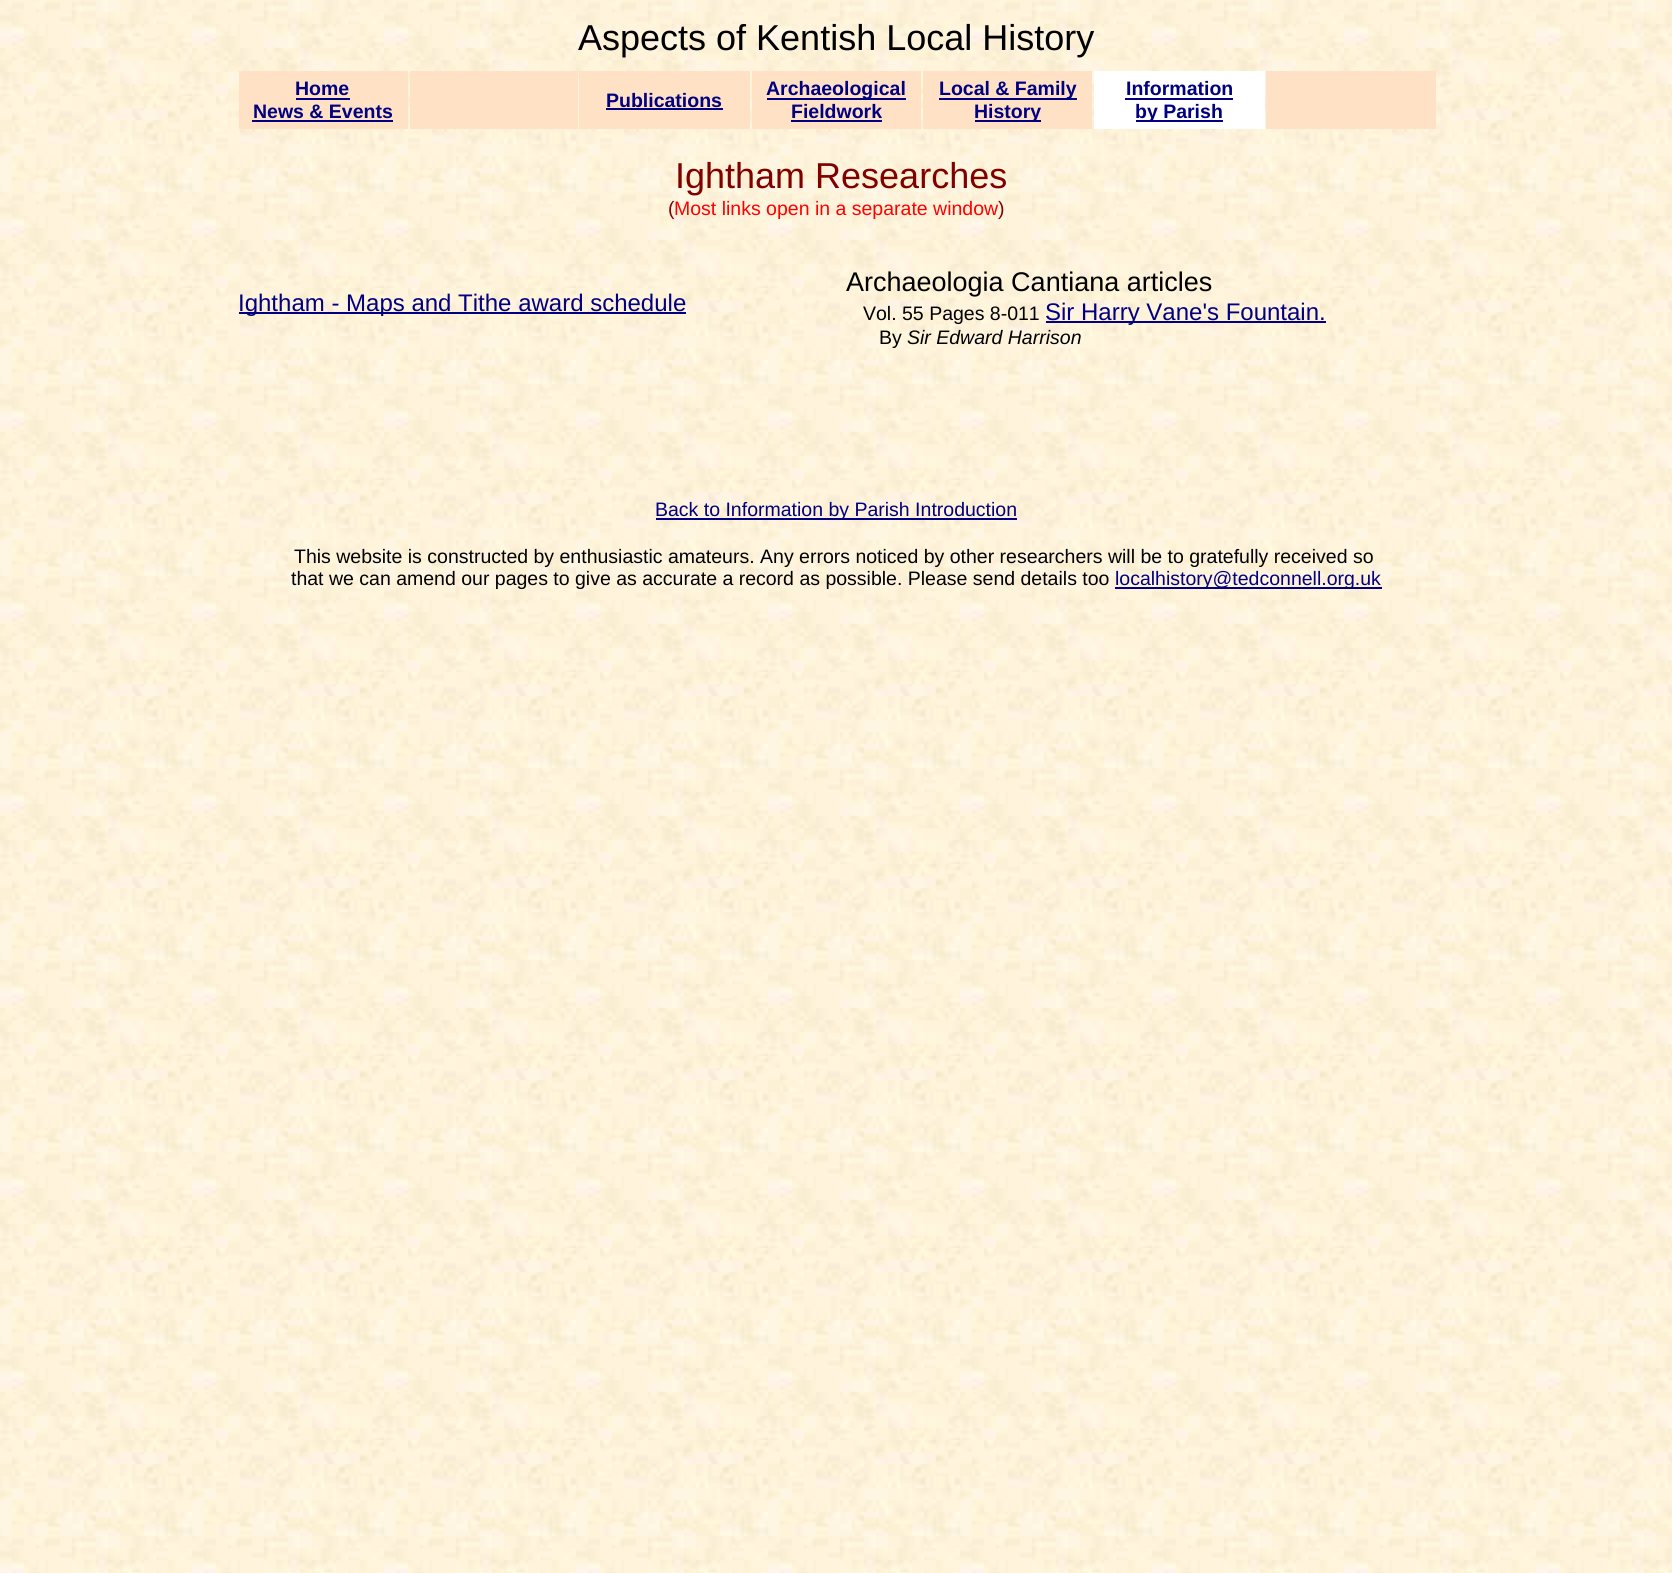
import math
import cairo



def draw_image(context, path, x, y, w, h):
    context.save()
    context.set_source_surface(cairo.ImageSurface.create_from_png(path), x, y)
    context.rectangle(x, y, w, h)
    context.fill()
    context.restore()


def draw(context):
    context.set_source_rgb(1, 1, 1)
    context.paint()
    draw_image(context, "images/1.png", 0, 0, 1672, 1573)
    context.set_source_rgb(1, 226 / 255, 198 / 255)
    context.rectangle(239, 71, 169, 58)
    context.fill()
    context.set_source_rgb(0, 0, 128 / 255)
    context.rectangle(296, 98, 54, 2)
    context.fill()
    context.rectangle(252, 120, 141, 2)
    context.fill()
    context.set_source_rgb(1, 226 / 255, 198 / 255)
    context.rectangle(410, 71, 168, 58)
    context.fill()
    context.rectangle(579, 71, 171, 58)
    context.fill()
    context.set_source_rgb(0, 0, 128 / 255)
    context.rectangle(606, 108, 117, 2)
    context.fill()
    context.set_source_rgb(1, 226 / 255, 198 / 255)
    context.rectangle(752, 71, 169, 58)
    context.fill()
    context.set_source_rgb(0, 0, 128 / 255)
    context.rectangle(767, 98, 139, 2)
    context.fill()
    context.rectangle(791, 120, 91, 2)
    context.fill()
    context.set_source_rgb(1, 226 / 255, 198 / 255)
    context.rectangle(923, 71, 169, 58)
    context.fill()
    context.set_source_rgb(0, 0, 128 / 255)
    context.rectangle(939, 98, 138, 2)
    context.fill()
    context.rectangle(975, 120, 66, 2)
    context.fill()
    context.set_source_rgb(1, 1, 1)
    context.rectangle(1094, 71, 171, 58)
    context.fill()
    context.set_source_rgb(0, 0, 128 / 255)
    context.rectangle(1125, 98, 108, 2)
    context.fill()
    context.rectangle(1136, 120, 87, 2)
    context.fill()
    context.set_source_rgb(1, 226 / 255, 198 / 255)
    context.rectangle(1266, 71, 170, 58)
    context.fill()
    context.set_source_rgb(0, 0, 128 / 255)
    context.rectangle(239, 312, 447, 2)
    context.fill()
    context.rectangle(1046, 321, 280, 2)
    context.fill()
    context.rectangle(656, 518, 361, 2)
    context.fill()
    context.rectangle(1115, 587, 267, 2)
    context.fill()
    context.select_font_face("Liberation Sans")
    context.set_font_size(36)
    context.set_source_rgb(0, 0, 0)
    context.move_to(578, 50)
    context.show_text("Aspects of Kentish Local History")
    context.select_font_face("Liberation Sans", cairo.FontSlant.NORMAL, cairo.FontWeight.BOLD)
    context.set_font_size(19.5)
    context.set_source_rgb(0, 0, 128 / 255)
    context.move_to(295, 95)
    context.show_text("Home")
    context.move_to(253, 118)
    context.show_text("News & Events")
    context.move_to(606, 107)
    context.show_text("Publications")
    context.move_to(766, 95)
    context.show_text("Archaeological")
    context.move_to(791, 118)
    context.show_text("Fieldwork")
    context.move_to(939, 95)
    context.show_text("Local & Family")
    context.move_to(974, 118)
    context.show_text("History")
    context.move_to(1126, 95)
    context.show_text("Information")
    context.move_to(1135, 118)
    context.show_text("by Parish")
    context.select_font_face("Liberation Sans")
    context.set_font_size(36)
    context.set_source_rgb(128 / 255, 0, 0)
    context.move_to(675, 188)
    context.show_text("Ightham Researches")
    context.set_font_size(19.5)
    context.move_to(668, 215)
    context.show_text("(")
    context.set_source_rgb(1, 0, 0)
    context.move_to(674, 215)
    context.show_text("Most links open in a separate window")
    context.set_source_rgb(128 / 255, 0, 0)
    context.move_to(998, 215)
    context.show_text(")")
    context.set_font_size(24)
    context.set_source_rgb(0, 0, 128 / 255)
    context.move_to(238, 311)
    context.show_text("Ightham - Maps and Tithe award schedule")
    context.set_font_size(27)
    context.set_source_rgb(0, 0, 0)
    context.move_to(846, 291)
    context.show_text("Archaeologia Cantiana articles")
    context.set_font_size(19.5)
    context.move_to(863, 320)
    context.show_text("Vol. 55 Pages 8-011")
    context.set_font_size(24)
    context.set_source_rgb(0, 0, 128 / 255)
    context.move_to(1045, 320)
    context.show_text("Sir Harry Vane's Fountain.")
    context.set_font_size(19.5)
    context.set_source_rgb(0, 0, 0)
    context.move_to(879, 344)
    context.show_text("By")
    context.select_font_face("Liberation Sans", cairo.FontSlant.ITALIC)
    context.move_to(907, 344)
    context.show_text("Sir Edward Harrison")
    context.select_font_face("Liberation Sans")
    context.set_source_rgb(0, 0, 128 / 255)
    context.move_to(655, 516)
    context.show_text("Back to Information by Parish Introduction")
    context.set_source_rgb(0, 0, 0)
    context.move_to(294, 563)
    context.show_text("This website is constructed by enthusiastic amateurs. Any errors noticed by other researchers will be to gratefully received so")
    context.move_to(291, 585)
    context.show_text("that we can amend our pages to give as accurate a record as possible. Please send details too")
    context.set_source_rgb(0, 0, 128 / 255)
    context.move_to(1115, 585)
    context.show_text("localhistory@tedconnell.org.uk")


surface = cairo.ImageSurface(cairo.Format.RGB24, 1672, 1573)
context = cairo.Context(surface)
options = cairo.FontOptions()
options.set_hint_metrics(cairo.HintMetrics.OFF)
options.set_hint_style(cairo.HintStyle.NONE)
context.set_font_options(options)
context.set_miter_limit(4)
draw(context)
surface.write_to_png("out.png")
